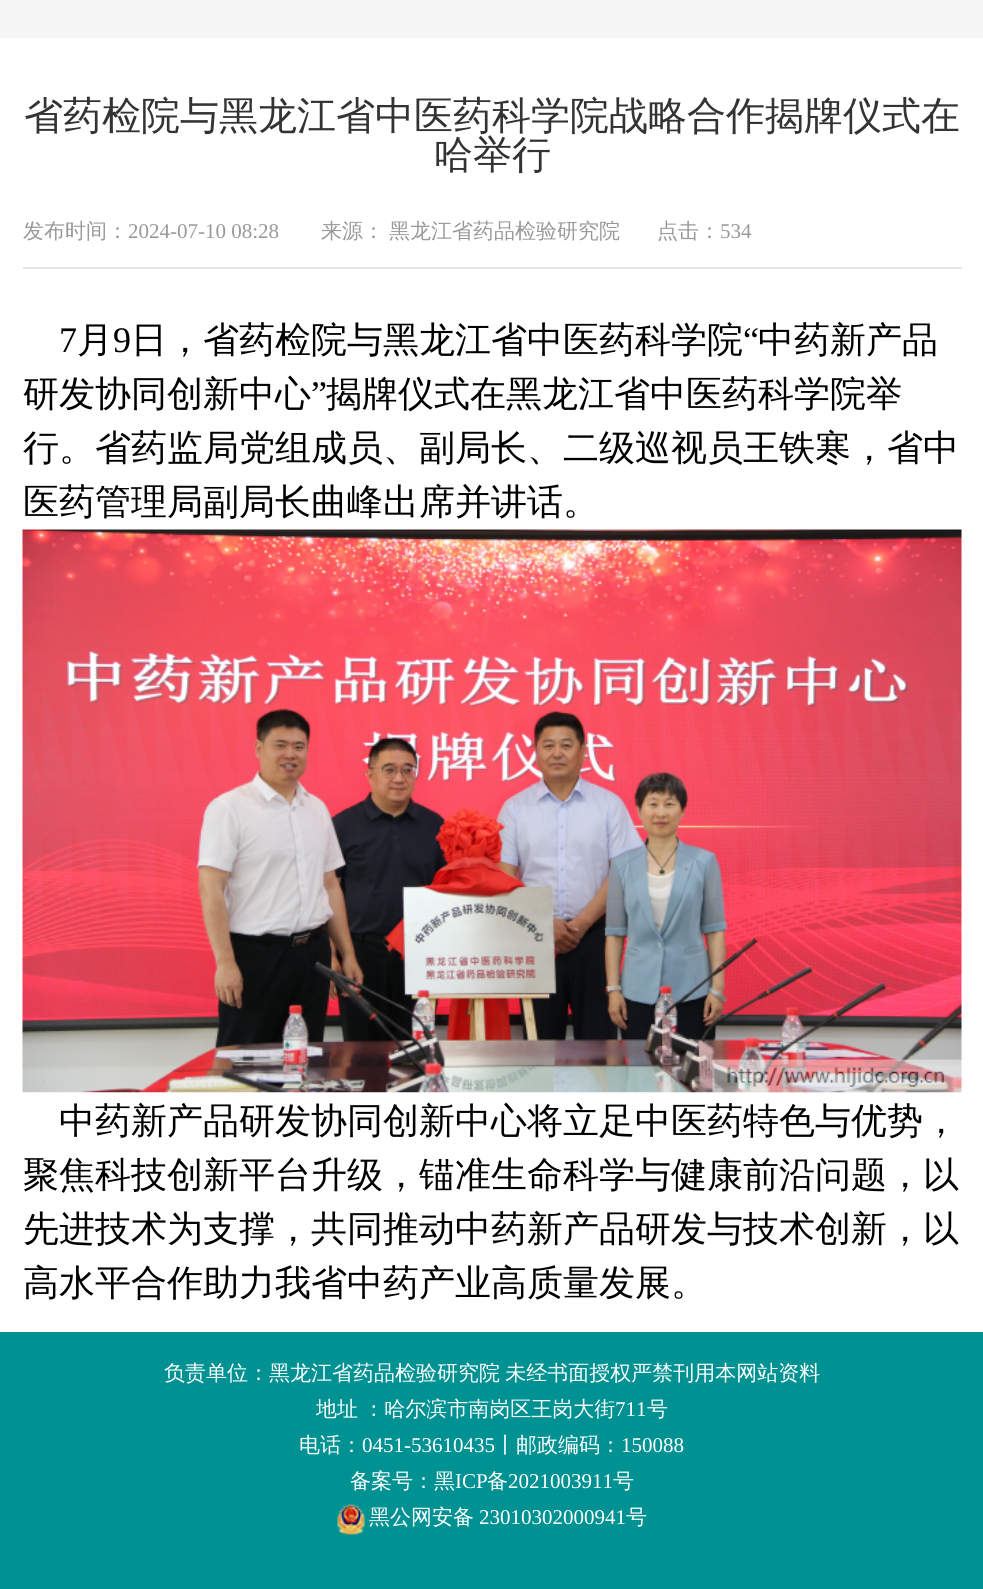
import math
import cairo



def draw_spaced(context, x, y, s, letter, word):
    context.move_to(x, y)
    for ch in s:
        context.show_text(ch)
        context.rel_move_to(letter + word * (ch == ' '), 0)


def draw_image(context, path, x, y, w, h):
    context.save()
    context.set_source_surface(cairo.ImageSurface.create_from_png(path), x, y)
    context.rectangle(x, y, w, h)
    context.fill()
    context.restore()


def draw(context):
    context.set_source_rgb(245 / 255, 245 / 255, 245 / 255)
    context.paint()
    context.set_source_rgb(1, 1, 1)
    context.rectangle(0, 38, 983, 1294)
    context.fill()
    context.set_source_rgb(230 / 255, 230 / 255, 230 / 255)
    context.rectangle(23, 267, 939, 2)
    context.fill()
    draw_image(context, "images/1.png", 22, 529, 940, 564)
    context.set_source_rgb(0, 145 / 255, 147 / 255)
    context.rectangle(0, 1332, 983, 257)
    context.fill()
    draw_image(context, "images/2.png", 337, 1504, 28, 31)
    context.select_font_face("WenQuanYi Zen Hei Medium")
    context.set_font_size(39)
    context.set_source_rgb(51 / 255, 51 / 255, 51 / 255)
    context.move_to(24, 129)
    context.show_text("省药检院与黑龙江省中医药科学院战略合作揭牌仪式在")
    context.move_to(434, 168)
    context.show_text("哈举行")
    context.set_font_size(21)
    context.set_source_rgb(153 / 255, 153 / 255, 153 / 255)
    context.move_to(23, 238)
    context.show_text("发布时间：")
    context.select_font_face("Liberation Serif")
    context.move_to(128, 238)
    context.show_text("2024-07-10 08:28")
    context.select_font_face("WenQuanYi Zen Hei Medium")
    context.move_to(321, 238)
    context.show_text("来源：")
    context.move_to(389, 238)
    context.show_text("黑龙江省药品检验研究院")
    context.move_to(657, 238)
    context.show_text("点击：")
    context.select_font_face("Liberation Serif")
    context.move_to(720, 238)
    context.show_text("534")
    context.set_font_size(36)
    context.set_source_rgb(0, 0, 0)
    context.move_to(59, 352)
    context.show_text("7")
    context.select_font_face("WenQuanYi Zen Hei Medium")
    context.move_to(77, 352)
    context.show_text("月")
    context.select_font_face("Liberation Serif")
    context.move_to(113, 352)
    context.show_text("9")
    context.select_font_face("WenQuanYi Zen Hei Medium")
    context.move_to(131, 352)
    context.show_text("日，省药检院与黑龙江省中医药科学院")
    context.select_font_face("Liberation Serif")
    context.move_to(743, 352)
    context.show_text("“")
    context.select_font_face("WenQuanYi Zen Hei Medium")
    context.move_to(758, 352)
    context.show_text("中药新产品")
    context.move_to(23, 406)
    context.show_text("研发协同创新中心")
    context.select_font_face("Liberation Serif")
    context.move_to(311, 406)
    context.show_text("”")
    context.select_font_face("WenQuanYi Zen Hei Medium")
    context.move_to(326, 406)
    context.show_text("揭牌仪式在黑龙江省中医药科学院举")
    context.move_to(23, 460)
    context.show_text("行。省药监局党组成员、副局长、二级巡视员王铁寒，省中")
    context.move_to(23, 514)
    context.show_text("医药管理局副局长曲峰出席并讲话。")
    context.move_to(59, 1133)
    context.show_text("中药新产品研发协同创新中心将立足中医药特色与优势，")
    context.move_to(23, 1187)
    context.show_text("聚焦科技创新平台升级，锚准生命科学与健康前沿问题，以")
    context.move_to(23, 1241)
    context.show_text("先进技术为支撑，共同推动中药新产品研发与技术创新，以")
    context.move_to(23, 1295)
    context.show_text("高水平合作助力我省中药产业高质量发展。")
    context.set_font_size(21)
    context.set_source_rgb(1, 1, 1)
    draw_spaced(context, 164, 1380, "负责单位：黑龙江省药品检验研究院 未经书面授权严禁刊用本网站资料", 0, -1)
    draw_spaced(context, 316, 1416, "地址 ：哈尔滨市南岗区王岗大街", 0, -1)
    context.select_font_face("Liberation Serif")
    context.move_to(615, 1416)
    context.show_text("711")
    context.select_font_face("WenQuanYi Zen Hei Medium")
    context.move_to(647, 1416)
    context.show_text("号")
    context.move_to(299, 1452)
    context.show_text("电话：")
    context.select_font_face("Liberation Serif")
    context.move_to(362, 1452)
    context.show_text("0451-53610435")
    context.select_font_face("WenQuanYi Zen Hei Medium")
    context.move_to(495, 1452)
    context.show_text("丨邮政编码：")
    context.select_font_face("Liberation Serif")
    context.move_to(621, 1452)
    context.show_text("150088")
    context.select_font_face("WenQuanYi Zen Hei Medium")
    context.move_to(350, 1488)
    context.show_text("备案号：黑")
    context.select_font_face("Liberation Serif")
    context.move_to(455, 1488)
    context.show_text("ICP")
    context.select_font_face("WenQuanYi Zen Hei Medium")
    context.move_to(487, 1488)
    context.show_text("备")
    context.select_font_face("Liberation Serif")
    context.move_to(508, 1488)
    context.show_text("2021003911")
    context.select_font_face("WenQuanYi Zen Hei Medium")
    context.move_to(613, 1488)
    context.show_text("号")
    context.move_to(369, 1524)
    context.show_text("黑公网安备")
    context.select_font_face("Liberation Serif")
    context.move_to(479, 1524)
    context.show_text("23010302000941")
    context.select_font_face("WenQuanYi Zen Hei Medium")
    context.move_to(626, 1524)
    context.show_text("号")


surface = cairo.ImageSurface(cairo.Format.RGB24, 983, 1589)
context = cairo.Context(surface)
options = cairo.FontOptions()
options.set_hint_metrics(cairo.HintMetrics.OFF)
options.set_hint_style(cairo.HintStyle.NONE)
context.set_font_options(options)
context.set_miter_limit(4)
draw(context)
surface.write_to_png("out.png")
